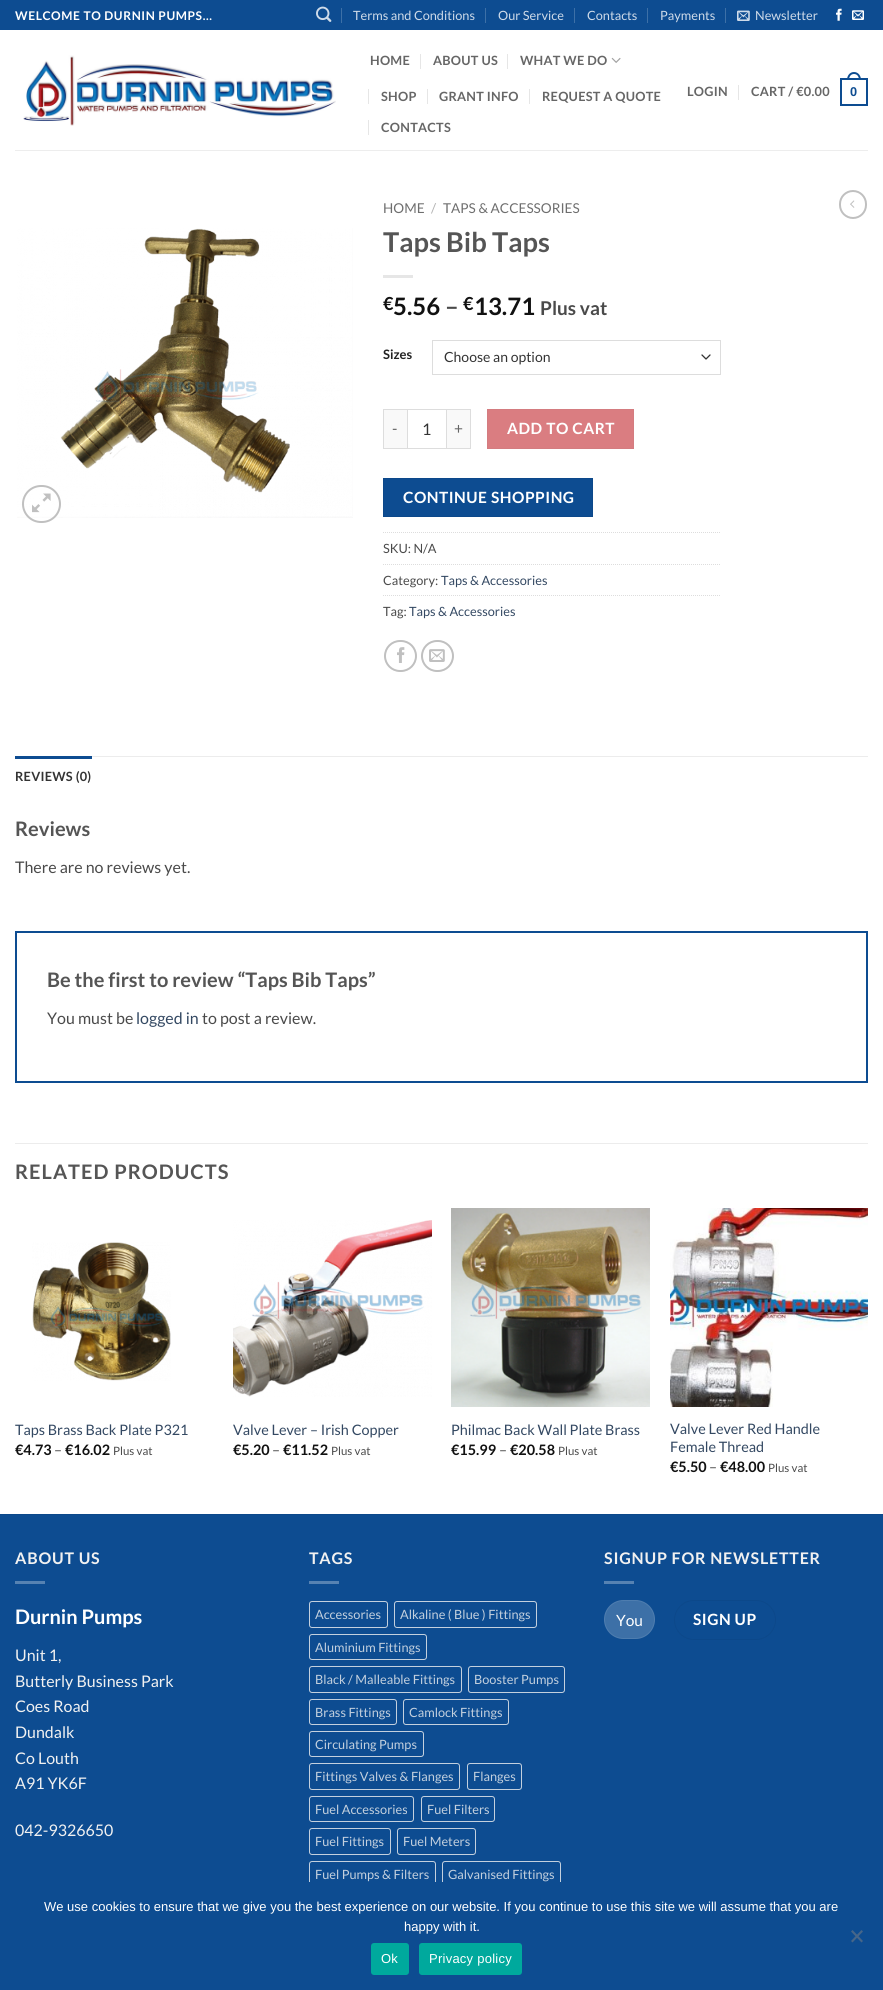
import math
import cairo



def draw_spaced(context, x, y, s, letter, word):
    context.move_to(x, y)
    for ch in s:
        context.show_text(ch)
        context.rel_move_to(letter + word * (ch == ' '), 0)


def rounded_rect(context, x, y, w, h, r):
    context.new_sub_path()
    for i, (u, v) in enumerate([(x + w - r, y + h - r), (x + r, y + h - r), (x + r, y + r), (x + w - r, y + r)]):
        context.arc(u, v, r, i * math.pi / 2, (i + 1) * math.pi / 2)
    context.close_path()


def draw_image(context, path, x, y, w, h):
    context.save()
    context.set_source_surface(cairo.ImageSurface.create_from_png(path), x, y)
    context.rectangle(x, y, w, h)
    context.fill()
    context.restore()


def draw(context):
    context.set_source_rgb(1, 1, 1)
    context.paint()
    context.set_source_rgb(13 / 255, 76 / 255, 145 / 255)
    context.rectangle(0, 0, 883, 30)
    context.fill()
    draw_image(context, "images/1.png", 316, 6, 16, 16)
    context.set_source_rgb(61 / 255, 112 / 255, 167 / 255)
    context.rectangle(341, 8, 1, 15)
    context.fill()
    context.rectangle(485, 8, 1, 15)
    context.fill()
    context.rectangle(574, 8, 1, 15)
    context.fill()
    context.rectangle(647, 8, 1, 15)
    context.fill()
    context.rectangle(725, 8, 1, 15)
    context.fill()
    draw_image(context, "images/2.png", 737, 10, 13, 11)
    draw_image(context, "images/3.png", 836, 8, 6, 13)
    draw_image(context, "images/4.png", 852, 10, 12, 10)
    draw_image(context, "images/5.png", 23, 55, 313, 71)
    context.set_source_rgb(230 / 255, 230 / 255, 230 / 255)
    context.rectangle(420, 54, 1, 15)
    context.fill()
    context.rectangle(507, 54, 1, 15)
    context.fill()
    draw_image(context, "images/6.png", 611, 57, 10, 6)
    context.rectangle(368, 89, 1, 15)
    context.fill()
    context.rectangle(427, 89, 1, 15)
    context.fill()
    context.rectangle(529, 89, 1, 15)
    context.fill()
    context.rectangle(368, 120, 1, 15)
    context.fill()
    context.rectangle(738, 85, 1, 15)
    context.fill()
    context.rectangle(841, 79, 26, 26)
    context.set_source_rgb(13 / 255, 76 / 255, 145 / 255)
    context.stroke()
    context.set_fill_rule(cairo.FillRule.EVEN_ODD)
    context.new_path()
    context.move_to(854, 72)
    context.curve_to(858.5, 72, 861, 76, 861, 80)
    context.line_to(847, 80)
    context.curve_to(847, 76, 849.5, 72, 854, 72)
    context.close_path()
    context.move_to(854, 74)
    context.curve_to(857.5, 74, 859, 77, 859, 80)
    context.line_to(849, 80)
    context.curve_to(849, 77, 850.5, 74, 854, 74)
    context.close_path()
    context.fill()
    context.set_source_rgb(237 / 255, 237 / 255, 237 / 255)
    context.rectangle(15, 150, 853, 1)
    context.fill()
    draw_image(context, "images/7.png", 17, 228, 336, 290)
    rounded_rect(context, 23, 486, 37, 36, 18)
    context.set_source_rgb(192 / 255, 192 / 255, 192 / 255)
    context.stroke()
    draw_image(context, "images/8.png", 32, 493, 19, 20)
    context.set_source_rgb(230 / 255, 230 / 255, 230 / 255)
    context.rectangle(383, 275, 30, 3)
    context.fill()
    context.new_path()
    context.move_to(702, 355)
    context.line_to(706, 359)
    context.line_to(710, 355)
    context.set_source_rgb(51 / 255, 51 / 255, 51 / 255)
    context.set_line_width(1.3)
    context.set_line_cap(cairo.LineCap.ROUND)
    context.set_line_join(cairo.LineJoin.ROUND)
    context.stroke()
    context.rectangle(432.5, 340.5, 288, 34)
    context.set_source_rgb(221 / 255, 221 / 255, 221 / 255)
    context.set_line_width(1)
    context.set_line_cap(cairo.LineCap.BUTT)
    context.set_line_join(cairo.LineJoin.MITER)
    context.stroke()
    context.set_source_rgb(249 / 255, 249 / 255, 249 / 255)
    context.rectangle(384, 410, 23, 38)
    context.fill()
    context.set_source_rgb(221 / 255, 221 / 255, 221 / 255)
    context.rectangle(383, 409, 24, 1)
    context.fill()
    context.rectangle(383, 448, 24, 1)
    context.fill()
    context.rectangle(383, 409, 1, 40)
    context.fill()
    context.rectangle(407.5, 409.5, 39, 39)
    context.stroke()
    context.set_source_rgb(249 / 255, 249 / 255, 249 / 255)
    context.rectangle(447, 410, 23, 38)
    context.fill()
    context.set_source_rgb(221 / 255, 221 / 255, 221 / 255)
    context.rectangle(447, 409, 24, 1)
    context.fill()
    context.rectangle(470, 409, 1, 40)
    context.fill()
    context.rectangle(447, 448, 24, 1)
    context.fill()
    context.set_source_rgb(218 / 255, 125 / 255, 129 / 255)
    context.rectangle(487.5, 409.5, 146, 39)
    context.fill_preserve()
    context.set_source_rgb(212 / 255, 124 / 255, 128 / 255)
    context.stroke()
    context.set_source_rgb(13 / 255, 76 / 255, 145 / 255)
    context.rectangle(383.5, 478.5, 209, 38)
    context.fill_preserve()
    context.set_source_rgb(12 / 255, 72 / 255, 138 / 255)
    context.stroke()
    context.new_path()
    context.move_to(383, 532.5)
    context.line_to(721, 532.5)
    context.set_source_rgb(221 / 255, 221 / 255, 221 / 255)
    context.set_dash([1, 1])
    context.stroke()
    context.new_path()
    context.move_to(383, 564.5)
    context.line_to(721, 564.5)
    context.stroke()
    context.new_path()
    context.move_to(383, 595.5)
    context.line_to(721, 595.5)
    context.stroke()
    rounded_rect(context, 385, 641, 31, 30, 15)
    context.set_source_rgb(192 / 255, 192 / 255, 192 / 255)
    context.set_line_width(2)
    context.set_dash([])
    context.stroke()
    draw_image(context, "images/9.png", 397, 647, 8, 16)
    rounded_rect(context, 422, 641, 31, 30, 15)
    context.stroke()
    draw_image(context, "images/10.png", 429, 649, 16, 13)
    rounded_rect(context, 840, 191, 26, 27, 13)
    context.stroke()
    draw_image(context, "images/11.png", 850, 200, 5, 8)
    context.set_source_rgb(236 / 255, 236 / 255, 236 / 255)
    context.rectangle(92, 756, 776, 1)
    context.fill()
    context.set_source_rgb(13 / 255, 76 / 255, 145 / 255)
    context.rectangle(15, 756, 77, 3)
    context.fill()
    context.rectangle(16, 932, 851, 150)
    context.stroke()
    context.set_source_rgb(236 / 255, 236 / 255, 236 / 255)
    context.rectangle(15, 1143, 853, 1)
    context.fill()
    draw_image(context, "images/12.png", 32, 1242, 139, 139)
    draw_image(context, "images/13.png", 233, 1220, 199, 177)
    draw_image(context, "images/14.png", 451, 1208, 199, 199)
    draw_image(context, "images/15.png", 670, 1208, 198, 199)
    context.set_source_rgb(13 / 255, 76 / 255, 145 / 255)
    context.rectangle(0, 1515, 883, 367)
    context.fill()
    context.set_source_rgb(12 / 255, 72 / 255, 138 / 255)
    context.rectangle(0, 1514, 883, 1)
    context.fill()
    context.set_source_rgb(86 / 255, 130 / 255, 178 / 255)
    context.rectangle(15, 1581, 30, 3)
    context.fill()
    context.rectangle(309, 1581, 30, 3)
    context.fill()
    rounded_rect(context, 309.5, 1601.5, 78, 26, 2.5)
    context.set_source_rgb(195 / 255, 208 / 255, 222 / 255)
    context.set_line_width(1)
    context.stroke()
    rounded_rect(context, 394.5, 1601.5, 142, 26, 2.5)
    context.stroke()
    rounded_rect(context, 309.5, 1634.5, 117, 25, 2.5)
    context.stroke()
    rounded_rect(context, 309.5, 1666.5, 152, 26, 2.5)
    context.stroke()
    rounded_rect(context, 468.5, 1666.5, 96, 26, 2.5)
    context.stroke()
    rounded_rect(context, 309.5, 1699.5, 87, 25, 2.5)
    context.stroke()
    rounded_rect(context, 403.5, 1699.5, 105, 25, 2.5)
    context.stroke()
    rounded_rect(context, 309.5, 1731.5, 114, 25, 2.5)
    context.stroke()
    rounded_rect(context, 309.5, 1763.5, 150, 26, 2.5)
    context.stroke()
    rounded_rect(context, 467.5, 1763.5, 54, 26, 2.5)
    context.stroke()
    rounded_rect(context, 309.5, 1796.5, 104, 25, 2.5)
    context.stroke()
    rounded_rect(context, 421.5, 1796.5, 73, 25, 2.5)
    context.stroke()
    rounded_rect(context, 309.5, 1828.5, 81, 26, 2.5)
    context.stroke()
    rounded_rect(context, 397.5, 1828.5, 78, 26, 2.5)
    context.stroke()
    rounded_rect(context, 309.5, 1861.5, 126, 25, 2.5)
    context.stroke()
    rounded_rect(context, 442.5, 1861.5, 118, 25, 2.5)
    context.stroke()
    context.set_source_rgb(86 / 255, 130 / 255, 178 / 255)
    context.rectangle(604, 1581, 30, 3)
    context.fill()
    context.set_source_rgb(61 / 255, 112 / 255, 167 / 255)
    rounded_rect(context, 604, 1600, 51, 39, 19.5)
    context.fill()
    rounded_rect(context, 604.5, 1600.5, 50, 38, 19)
    context.set_source_rgba(1, 1, 1, 0.09)
    context.stroke()
    rounded_rect(context, 674.5, 1600.5, 101, 39, 19.5)
    context.set_source_rgb(12 / 255, 72 / 255, 138 / 255)
    context.stroke()
    context.set_source_rgb(13 / 255, 76 / 255, 145 / 255)
    context.rectangle(0, 1882, 883, 108)
    context.fill()
    context.set_source_rgb(71 / 255, 102 / 255, 137 / 255)
    context.set_fill_rule(cairo.FillRule.WINDING)
    context.new_path()
    context.move_to(861.5, 1930)
    context.line_to(863, 1931.5)
    context.line_to(852.5, 1942.5)
    context.line_to(851, 1941)
    context.close_path()
    context.fill()
    context.new_path()
    context.move_to(851, 1931.5)
    context.line_to(852.5, 1930)
    context.line_to(863, 1941)
    context.line_to(861.5, 1942.5)
    context.close_path()
    context.fill()
    context.set_source_rgb(0, 169 / 255, 157 / 255)
    rounded_rect(context, 371, 1943, 38, 32, 3)
    context.fill()
    rounded_rect(context, 419, 1943, 103, 32, 3)
    context.fill()
    context.select_font_face("Lato", cairo.FontSlant.NORMAL, cairo.FontWeight.BOLD)
    context.set_font_size(12)
    context.set_source_rgb(1, 1, 1)
    draw_spaced(context, 15, 20, "WELCOME TO DURNIN PUMPS...", 0.6, 0)
    context.select_font_face("Lato")
    context.set_font_size(12.75)
    context.set_source_rgb(207 / 255, 219 / 255, 233 / 255)
    context.move_to(353, 20)
    context.show_text("Terms and Conditions")
    context.move_to(498, 20)
    context.show_text("Our Service")
    context.move_to(587, 20)
    context.show_text("Contacts")
    context.move_to(660, 20)
    context.show_text("Payments")
    context.move_to(755, 20)
    context.show_text("Newsletter")
    context.select_font_face("Lato", cairo.FontSlant.NORMAL, cairo.FontWeight.BOLD)
    context.set_source_rgb(102 / 255, 102 / 255, 102 / 255)
    draw_spaced(context, 370, 65, "HOME", 0.25, 0)
    draw_spaced(context, 433, 65, "ABOUT US", 0.25, 0)
    draw_spaced(context, 520, 65, "WHAT WE DO", 0.25, 0)
    draw_spaced(context, 381, 101, "SHOP", 0.25, 0)
    draw_spaced(context, 439, 101, "GRANT INFO", 0.25, 0)
    draw_spaced(context, 542, 101, "REQUEST A QUOTE", 0.25, 0)
    draw_spaced(context, 381, 132, "CONTACTS", 0.25, 0)
    draw_spaced(context, 687, 96, "LOGIN", 0.25, 0)
    draw_spaced(context, 751, 96, "CART / €0.00", 0.25, 0)
    context.select_font_face("Liberation Sans", cairo.FontSlant.NORMAL, cairo.FontWeight.BOLD)
    context.set_source_rgb(13 / 255, 76 / 255, 145 / 255)
    draw_spaced(context, 850, 96, "0", 0.25, 0)
    context.select_font_face("Lato")
    context.set_font_size(13.6)
    context.set_source_rgb(110 / 255, 110 / 255, 110 / 255)
    context.move_to(383, 213)
    context.show_text("HOME")
    context.set_source_rgb(178 / 255, 178 / 255, 178 / 255)
    context.move_to(431, 213)
    context.show_text("/")
    context.set_source_rgb(110 / 255, 110 / 255, 110 / 255)
    context.move_to(443, 213)
    context.show_text("TAPS & ACCESSORIES")
    context.select_font_face("Lato", cairo.FontSlant.NORMAL, cairo.FontWeight.BOLD)
    context.set_font_size(27.25)
    context.set_source_rgb(85 / 255, 85 / 255, 85 / 255)
    context.move_to(383, 252)
    context.show_text("Taps Bib Taps")
    context.set_font_size(18)
    context.set_source_rgb(17 / 255, 17 / 255, 17 / 255)
    context.move_to(383, 310)
    context.show_text("€")
    context.set_font_size(24)
    context.move_to(393, 315)
    context.show_text("5.56")
    context.set_source_rgb(74 / 255, 74 / 255, 74 / 255)
    context.move_to(445, 315)
    context.show_text("–")
    context.set_font_size(18)
    context.set_source_rgb(17 / 255, 17 / 255, 17 / 255)
    context.move_to(463, 310)
    context.show_text("€")
    context.set_font_size(24)
    context.move_to(474, 315)
    context.show_text("13.71")
    context.set_font_size(19)
    context.set_source_rgb(74 / 255, 74 / 255, 74 / 255)
    context.move_to(540, 315)
    context.show_text("Plus vat")
    context.set_font_size(13)
    context.set_source_rgb(34 / 255, 34 / 255, 34 / 255)
    context.move_to(383, 359)
    context.show_text("Sizes")
    context.select_font_face("Lato")
    context.set_font_size(14)
    context.set_source_rgb(51 / 255, 51 / 255, 51 / 255)
    context.move_to(444, 362)
    context.show_text("Choose an option")
    context.set_font_size(15.5)
    context.set_source_rgb(102 / 255, 102 / 255, 102 / 255)
    draw_spaced(context, 392, 434, "-", 0.5, 0)
    context.set_font_size(16)
    context.set_source_rgb(51 / 255, 51 / 255, 51 / 255)
    context.move_to(422, 435)
    context.show_text("1")
    context.set_font_size(15.5)
    context.set_source_rgb(102 / 255, 102 / 255, 102 / 255)
    draw_spaced(context, 454, 434, "+", 0.5, 0)
    context.select_font_face("Lato", cairo.FontSlant.NORMAL, cairo.FontWeight.BOLD)
    context.set_source_rgb(1, 1, 1)
    draw_spaced(context, 507, 434, "ADD TO CART", 0.5, 0)
    draw_spaced(context, 403, 503, "CONTINUE SHOPPING", 0.5, 0)
    context.select_font_face("Lato")
    context.set_font_size(12.75)
    context.set_source_rgb(74 / 255, 74 / 255, 74 / 255)
    context.move_to(383, 553)
    context.show_text("SKU: N/A")
    context.move_to(383, 585)
    context.show_text("Category:")
    context.set_source_rgb(51 / 255, 72 / 255, 98 / 255)
    context.move_to(441, 585)
    context.show_text("Taps & Accessories")
    context.set_source_rgb(74 / 255, 74 / 255, 74 / 255)
    context.move_to(383, 616)
    context.show_text("Tag:")
    context.set_source_rgb(51 / 255, 72 / 255, 98 / 255)
    context.move_to(409, 616)
    context.show_text("Taps & Accessories")
    context.select_font_face("Lato", cairo.FontSlant.NORMAL, cairo.FontWeight.BOLD)
    context.set_source_rgb(51 / 255, 51 / 255, 51 / 255)
    draw_spaced(context, 15, 781, "REVIEWS (0)", 0.25, 0)
    context.set_font_size(20)
    context.set_source_rgb(85 / 255, 85 / 255, 85 / 255)
    context.move_to(15, 836)
    context.show_text("Reviews")
    context.select_font_face("Lato")
    context.set_font_size(16)
    context.set_source_rgb(74 / 255, 74 / 255, 74 / 255)
    context.move_to(15, 873)
    context.show_text("There are no reviews yet.")
    context.select_font_face("Lato", cairo.FontSlant.NORMAL, cairo.FontWeight.BOLD)
    context.set_font_size(20)
    context.set_source_rgb(85 / 255, 85 / 255, 85 / 255)
    context.move_to(47, 987)
    context.show_text("Be the first to review “Taps Bib Taps”")
    context.select_font_face("Lato")
    context.set_font_size(16)
    context.set_source_rgb(74 / 255, 74 / 255, 74 / 255)
    context.move_to(47, 1024)
    context.show_text("You must be")
    context.set_source_rgb(51 / 255, 72 / 255, 98 / 255)
    context.move_to(136, 1024)
    context.show_text("logged in")
    context.set_source_rgb(74 / 255, 74 / 255, 74 / 255)
    context.move_to(202, 1024)
    context.show_text("to post a review.")
    context.select_font_face("Lato", cairo.FontSlant.NORMAL, cairo.FontWeight.BOLD)
    context.set_font_size(20)
    context.set_source_rgb(85 / 255, 85 / 255, 85 / 255)
    draw_spaced(context, 15, 1179, "RELATED PRODUCTS", 1, 0)
    context.select_font_face("Lato")
    context.set_font_size(14.4)
    context.set_source_rgb(51 / 255, 72 / 255, 98 / 255)
    context.move_to(15, 1435)
    context.show_text("Taps Brass Back Plate P321")
    context.select_font_face("Lato", cairo.FontSlant.NORMAL, cairo.FontWeight.BOLD)
    context.set_source_rgb(17 / 255, 17 / 255, 17 / 255)
    context.move_to(15, 1455)
    context.show_text("€4.73")
    context.select_font_face("Lato")
    context.set_source_rgb(74 / 255, 74 / 255, 74 / 255)
    context.move_to(54, 1455)
    context.show_text("–")
    context.select_font_face("Lato", cairo.FontSlant.NORMAL, cairo.FontWeight.BOLD)
    context.set_source_rgb(17 / 255, 17 / 255, 17 / 255)
    context.move_to(65, 1455)
    context.show_text("€16.02")
    context.select_font_face("Lato")
    context.set_font_size(11.5)
    context.set_source_rgb(74 / 255, 74 / 255, 74 / 255)
    context.move_to(113, 1455)
    context.show_text("Plus vat")
    context.set_font_size(14.4)
    context.set_source_rgb(51 / 255, 72 / 255, 98 / 255)
    context.move_to(233, 1435)
    context.show_text("Valve Lever – Irish Copper")
    context.select_font_face("Lato", cairo.FontSlant.NORMAL, cairo.FontWeight.BOLD)
    context.set_source_rgb(17 / 255, 17 / 255, 17 / 255)
    context.move_to(233, 1455)
    context.show_text("€5.20")
    context.select_font_face("Lato")
    context.set_source_rgb(74 / 255, 74 / 255, 74 / 255)
    context.move_to(272, 1455)
    context.show_text("–")
    context.select_font_face("Lato", cairo.FontSlant.NORMAL, cairo.FontWeight.BOLD)
    context.set_source_rgb(17 / 255, 17 / 255, 17 / 255)
    context.move_to(283, 1455)
    context.show_text("€11.52")
    context.select_font_face("Lato")
    context.set_font_size(11.5)
    context.set_source_rgb(74 / 255, 74 / 255, 74 / 255)
    context.move_to(331, 1455)
    context.show_text("Plus vat")
    context.set_font_size(14.4)
    context.set_source_rgb(51 / 255, 72 / 255, 98 / 255)
    context.move_to(451, 1435)
    context.show_text("Philmac Back Wall Plate Brass")
    context.select_font_face("Lato", cairo.FontSlant.NORMAL, cairo.FontWeight.BOLD)
    context.set_source_rgb(17 / 255, 17 / 255, 17 / 255)
    context.move_to(451, 1455)
    context.show_text("€15.99")
    context.select_font_face("Lato")
    context.set_source_rgb(74 / 255, 74 / 255, 74 / 255)
    context.move_to(499, 1455)
    context.show_text("–")
    context.select_font_face("Lato", cairo.FontSlant.NORMAL, cairo.FontWeight.BOLD)
    context.set_source_rgb(17 / 255, 17 / 255, 17 / 255)
    context.move_to(510, 1455)
    context.show_text("€20.58")
    context.select_font_face("Lato")
    context.set_font_size(11.5)
    context.set_source_rgb(74 / 255, 74 / 255, 74 / 255)
    context.move_to(558, 1455)
    context.show_text("Plus vat")
    context.set_font_size(14.4)
    context.set_source_rgb(51 / 255, 72 / 255, 98 / 255)
    context.move_to(670, 1434)
    context.show_text("Valve Lever Red Handle")
    context.move_to(670, 1452)
    context.show_text("Female Thread")
    context.select_font_face("Lato", cairo.FontSlant.NORMAL, cairo.FontWeight.BOLD)
    context.set_source_rgb(17 / 255, 17 / 255, 17 / 255)
    context.move_to(670, 1472)
    context.show_text("€5.50")
    context.select_font_face("Lato")
    context.set_source_rgb(74 / 255, 74 / 255, 74 / 255)
    context.move_to(709, 1472)
    context.show_text("–")
    context.select_font_face("Lato", cairo.FontSlant.NORMAL, cairo.FontWeight.BOLD)
    context.set_source_rgb(17 / 255, 17 / 255, 17 / 255)
    context.move_to(720, 1472)
    context.show_text("€48.00")
    context.select_font_face("Lato")
    context.set_font_size(11.5)
    context.set_source_rgb(74 / 255, 74 / 255, 74 / 255)
    context.move_to(768, 1472)
    context.show_text("Plus vat")
    context.select_font_face("Lato", cairo.FontSlant.NORMAL, cairo.FontWeight.BOLD)
    context.set_font_size(16)
    context.set_source_rgb(241 / 255, 241 / 255, 241 / 255)
    draw_spaced(context, 15, 1564, "ABOUT US", 0.8, 0)
    context.set_font_size(20)
    context.set_source_rgb(1, 1, 1)
    context.move_to(15, 1624)
    context.show_text("Durnin Pumps")
    context.select_font_face("Lato")
    context.set_font_size(16)
    context.set_source_rgb(241 / 255, 241 / 255, 241 / 255)
    context.move_to(15, 1661)
    context.show_text("Unit 1,")
    context.move_to(15, 1687)
    context.show_text("Butterly Business Park")
    context.move_to(15, 1712)
    context.show_text("Coes Road")
    context.move_to(15, 1738)
    context.show_text("Dundalk")
    context.move_to(15, 1764)
    context.show_text("Co Louth")
    context.move_to(15, 1789)
    context.show_text("A91 YK6F")
    context.move_to(15, 1836)
    context.show_text("042-9326650")
    context.select_font_face("Lato", cairo.FontSlant.NORMAL, cairo.FontWeight.BOLD)
    draw_spaced(context, 309, 1564, "TAGS", 0.8, 0)
    context.select_font_face("Lato")
    context.set_font_size(12.75)
    context.set_source_rgb(195 / 255, 208 / 255, 222 / 255)
    context.move_to(315, 1619)
    context.show_text("Accessories")
    context.move_to(400, 1619)
    context.show_text("Alkaline ( Blue ) Fittings")
    context.move_to(315, 1652)
    context.show_text("Aluminium Fittings")
    context.move_to(315, 1684)
    context.show_text("Black / Malleable Fittings")
    context.move_to(474, 1684)
    context.show_text("Booster Pumps")
    context.move_to(315, 1717)
    context.show_text("Brass Fittings")
    context.move_to(409, 1717)
    context.show_text("Camlock Fittings")
    context.move_to(315, 1749)
    context.show_text("Circulating Pumps")
    context.move_to(315, 1781)
    context.show_text("Fittings Valves & Flanges")
    context.move_to(473, 1781)
    context.show_text("Flanges")
    context.move_to(315, 1814)
    context.show_text("Fuel Accessories")
    context.move_to(427, 1814)
    context.show_text("Fuel Filters")
    context.move_to(315, 1846)
    context.show_text("Fuel Fittings")
    context.move_to(403, 1846)
    context.show_text("Fuel Meters")
    context.move_to(315, 1879)
    context.show_text("Fuel Pumps & Filters")
    context.move_to(448, 1879)
    context.show_text("Galvanised Fittings")
    context.select_font_face("Lato", cairo.FontSlant.NORMAL, cairo.FontWeight.BOLD)
    context.set_font_size(16)
    context.set_source_rgb(241 / 255, 241 / 255, 241 / 255)
    draw_spaced(context, 604, 1564, "SIGNUP FOR NEWSLETTER", 0.8, 0)
    context.save()
    context.rectangle(616, 1611, 26, 18)
    context.clip()
    context.select_font_face("Lato")
    context.set_font_size(15.5)
    context.set_source_rgb(1, 1, 1)
    context.move_to(616, 1626)
    context.show_text("You")
    context.restore()
    context.set_font_size(15.5)
    context.set_source_rgb(1, 1, 1)
    draw_spaced(context, 693, 1625, "SIGN UP", 0.5, 0)
    context.select_font_face("Liberation Sans")
    context.set_font_size(13)
    context.move_to(44, 1911)
    context.show_text("We use cookies to ensure that we give you the best experience on our website. If you continue to use this site we will assume that you are")
    context.move_to(404, 1931)
    context.show_text("happy with it.")
    draw_spaced(context, 381, 1963, "Ok", 0.25, 0)
    draw_spaced(context, 429, 1963, "Privacy policy", 0.25, 0)


surface = cairo.ImageSurface(cairo.Format.RGB24, 883, 1990)
context = cairo.Context(surface)
options = cairo.FontOptions()
options.set_hint_metrics(cairo.HintMetrics.OFF)
options.set_hint_style(cairo.HintStyle.NONE)
context.set_font_options(options)
context.set_miter_limit(4)
draw(context)
surface.write_to_png("out.png")
